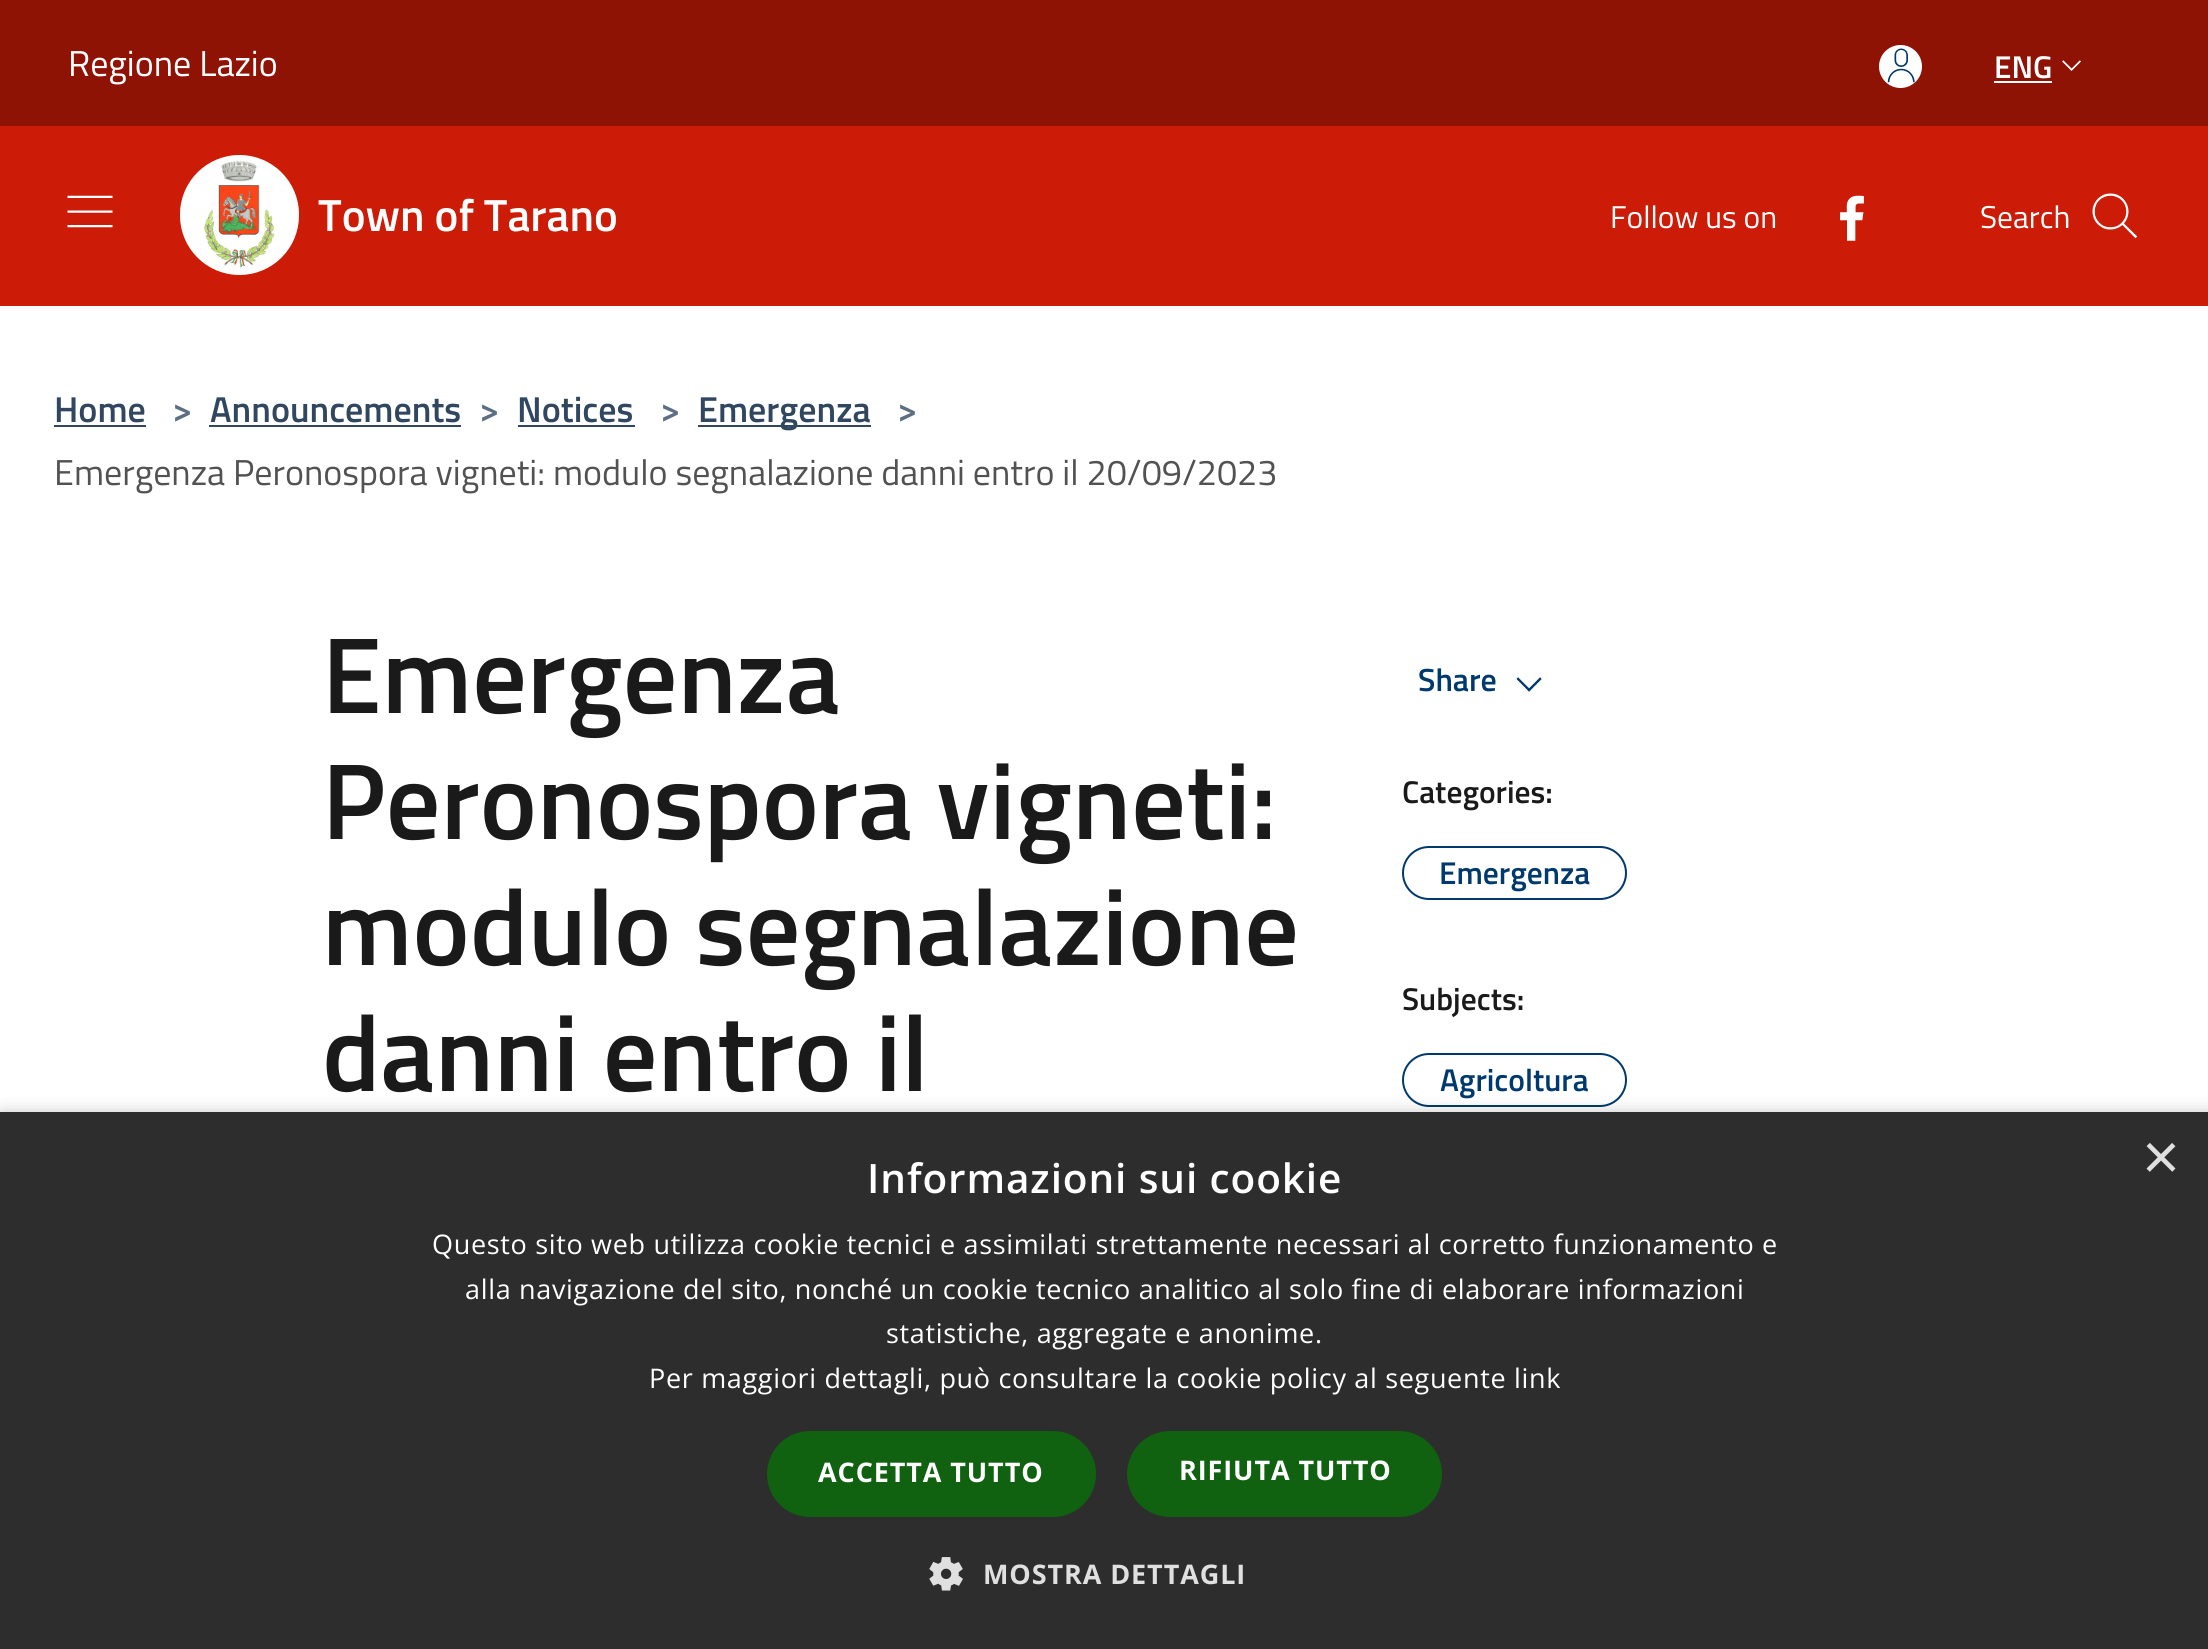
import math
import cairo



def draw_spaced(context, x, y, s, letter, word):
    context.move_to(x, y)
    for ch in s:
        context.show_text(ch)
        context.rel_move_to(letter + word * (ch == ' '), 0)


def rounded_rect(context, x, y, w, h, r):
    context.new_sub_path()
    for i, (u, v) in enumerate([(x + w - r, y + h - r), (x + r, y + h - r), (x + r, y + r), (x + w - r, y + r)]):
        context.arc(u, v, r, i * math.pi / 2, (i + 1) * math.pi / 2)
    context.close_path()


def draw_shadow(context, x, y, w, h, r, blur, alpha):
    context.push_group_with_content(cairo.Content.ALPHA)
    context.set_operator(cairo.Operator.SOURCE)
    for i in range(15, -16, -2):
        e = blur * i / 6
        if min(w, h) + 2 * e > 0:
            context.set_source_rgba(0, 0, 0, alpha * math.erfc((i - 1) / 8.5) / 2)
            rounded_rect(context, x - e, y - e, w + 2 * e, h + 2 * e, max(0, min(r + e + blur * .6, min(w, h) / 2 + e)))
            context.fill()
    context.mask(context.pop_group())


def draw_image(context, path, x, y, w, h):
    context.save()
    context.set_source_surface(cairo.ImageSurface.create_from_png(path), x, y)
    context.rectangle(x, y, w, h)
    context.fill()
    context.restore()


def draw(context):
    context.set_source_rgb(1, 1, 1)
    context.paint()
    context.set_source_rgb(142 / 255, 19 / 255, 5 / 255)
    context.rectangle(0, 0, 2208, 126)
    context.fill()
    context.set_source_rgb(1, 1, 1)
    context.arc(1900.5, 66.5, 21.5, 0, 2 * math.pi)
    context.fill()
    draw_image(context, "images/1.png", 1887, 48, 28, 35)
    context.rectangle(1994, 81, 58, 2)
    context.fill()
    draw_image(context, "images/2.png", 2062, 60, 19, 11)
    context.set_source_rgb(204 / 255, 28 / 255, 8 / 255)
    context.rectangle(0, 126, 2208, 180)
    context.fill()
    draw_image(context, "images/3.png", 67, 195, 46, 33)
    context.set_source_rgb(1, 1, 1)
    rounded_rect(context, 181, 156, 117, 118, 58.5)
    context.fill_preserve()
    context.stroke()
    draw_image(context, "images/4.png", 198, 160, 76, 108)
    draw_image(context, "images/5.png", 1840, 195, 24, 46)
    draw_image(context, "images/6.png", 2092, 193, 46, 46)
    context.set_source_rgb(48 / 255, 71 / 255, 95 / 255)
    context.rectangle(54, 425, 92, 2)
    context.fill()
    context.rectangle(209, 425, 252, 2)
    context.fill()
    context.rectangle(518, 425, 117, 2)
    context.fill()
    context.rectangle(698, 425, 173, 2)
    context.fill()
    draw_image(context, "images/7.png", 1516, 677, 26, 15)
    rounded_rect(context, 1403, 847, 223, 52, 26)
    context.set_source_rgb(0, 57 / 255, 110 / 255)
    context.stroke()
    rounded_rect(context, 1403, 1054, 223, 52, 26)
    context.stroke()
    context.set_source_rgb(0, 0, 0)
    draw_shadow(context, 2, 1116, 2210, 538, 0, 9, 0.35)
    context.set_source_rgb(45 / 255, 45 / 255, 45 / 255)
    context.rectangle(0, 1112, 2208, 537)
    context.fill()
    context.set_source_rgb(16 / 255, 97 / 255, 16 / 255)
    rounded_rect(context, 767, 1431, 329, 86, 43)
    context.fill()
    rounded_rect(context, 1127, 1431, 315, 86, 43)
    context.fill()
    draw_image(context, "images/8.png", 929, 1557, 34, 34)
    context.select_font_face("Titillium Web")
    context.set_font_size(36)
    context.set_source_rgb(1, 1, 1)
    context.move_to(68, 76)
    context.show_text("Regione Lazio")
    context.select_font_face("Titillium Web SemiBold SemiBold")
    context.set_font_size(31.5)
    context.move_to(1994, 78)
    context.show_text("ENG")
    context.set_font_size(45)
    context.move_to(318, 231)
    context.show_text("Town of Tarano")
    context.select_font_face("Titillium Web")
    context.set_font_size(31.5)
    context.move_to(1610, 228)
    context.show_text("Follow us on")
    context.move_to(1980, 228)
    context.show_text("Search")
    context.select_font_face("Titillium Web SemiBold SemiBold")
    context.set_font_size(36)
    context.set_source_rgb(48 / 255, 71 / 255, 95 / 255)
    context.move_to(54, 422)
    context.show_text("Home")
    context.set_source_rgb(93 / 255, 112 / 255, 131 / 255)
    context.move_to(172, 422)
    context.show_text(">")
    context.set_source_rgb(48 / 255, 71 / 255, 95 / 255)
    context.move_to(210, 422)
    context.show_text("Announcements")
    context.set_source_rgb(93 / 255, 112 / 255, 131 / 255)
    context.move_to(479, 422)
    context.show_text(">")
    context.set_source_rgb(48 / 255, 71 / 255, 95 / 255)
    context.move_to(517, 422)
    context.show_text("Notices")
    context.set_source_rgb(93 / 255, 112 / 255, 131 / 255)
    context.move_to(660, 422)
    context.show_text(">")
    context.set_source_rgb(48 / 255, 71 / 255, 95 / 255)
    context.move_to(698, 422)
    context.show_text("Emergenza")
    context.set_source_rgb(93 / 255, 112 / 255, 131 / 255)
    context.move_to(897, 422)
    context.show_text(">")
    context.select_font_face("Titillium Web")
    context.set_source_rgb(82 / 255, 82 / 255, 82 / 255)
    context.move_to(54, 485)
    context.show_text("Emergenza Peronospora vigneti: modulo segnalazione danni entro il 20/09/2023")
    context.select_font_face("Titillium Web SemiBold SemiBold")
    context.set_font_size(108)
    context.set_source_rgb(26 / 255, 26 / 255, 26 / 255)
    context.move_to(322, 713)
    context.show_text("Emergenza")
    context.move_to(322, 839)
    context.show_text("Peronospora vigneti:")
    context.move_to(322, 965)
    context.show_text("modulo segnalazione")
    context.move_to(322, 1091)
    context.show_text("danni entro il")
    context.set_font_size(32)
    context.set_source_rgb(0, 57 / 255, 110 / 255)
    context.move_to(1418, 691)
    context.show_text("Share")
    context.set_font_size(31.5)
    context.set_source_rgb(26 / 255, 26 / 255, 26 / 255)
    context.move_to(1402, 803)
    context.show_text("Categories:")
    context.set_source_rgb(0, 57 / 255, 110 / 255)
    context.move_to(1439, 884)
    context.show_text("Emergenza")
    context.set_source_rgb(26 / 255, 26 / 255, 26 / 255)
    context.move_to(1402, 1010)
    context.show_text("Subjects:")
    context.set_source_rgb(0, 57 / 255, 110 / 255)
    context.move_to(1440, 1091)
    context.show_text("Agricoltura")
    context.select_font_face("Liberation Sans")
    context.set_font_size(65)
    context.set_source_rgb(224 / 255, 224 / 255, 224 / 255)
    context.move_to(2142, 1179)
    context.show_text("×")
    context.select_font_face("Open Sans SemiBold")
    context.set_font_size(40.5)
    context.set_source_rgb(1, 1, 1)
    draw_spaced(context, 867, 1193, "Informazioni sui cookie", 0.9, 0)
    context.select_font_face("Open Sans")
    context.set_font_size(27)
    draw_spaced(context, 432, 1254, "Questo sito web utilizza cookie tecnici e assimilati strettamente necessari al corretto funzionamento e", 0.67, 0)
    draw_spaced(context, 465, 1299, "alla navigazione del sito, nonché un cookie tecnico analitico al solo fine di elaborare informazioni", 0.67, 0)
    draw_spaced(context, 886, 1343, "statistiche, aggregate e anonime.", 0.67, 0)
    draw_spaced(context, 649, 1388, "Per maggiori dettagli, può consultare la cookie policy al seguente link", 0.67, 0)
    context.select_font_face("Open Sans", cairo.FontSlant.NORMAL, cairo.FontWeight.BOLD)
    draw_spaced(context, 818, 1482, "ACCETTA TUTTO", 0.9, 0)
    draw_spaced(context, 1179, 1480, "RIFIUTA TUTTO", 0.9, 0)
    context.set_source_rgb(224 / 255, 224 / 255, 224 / 255)
    draw_spaced(context, 983, 1584, "MOSTRA DETTAGLI", 0.9, 0)


surface = cairo.ImageSurface(cairo.Format.RGB24, 2208, 1649)
context = cairo.Context(surface)
options = cairo.FontOptions()
options.set_hint_metrics(cairo.HintMetrics.OFF)
options.set_hint_style(cairo.HintStyle.NONE)
context.set_font_options(options)
context.set_miter_limit(4)
draw(context)
surface.write_to_png("out.png")
